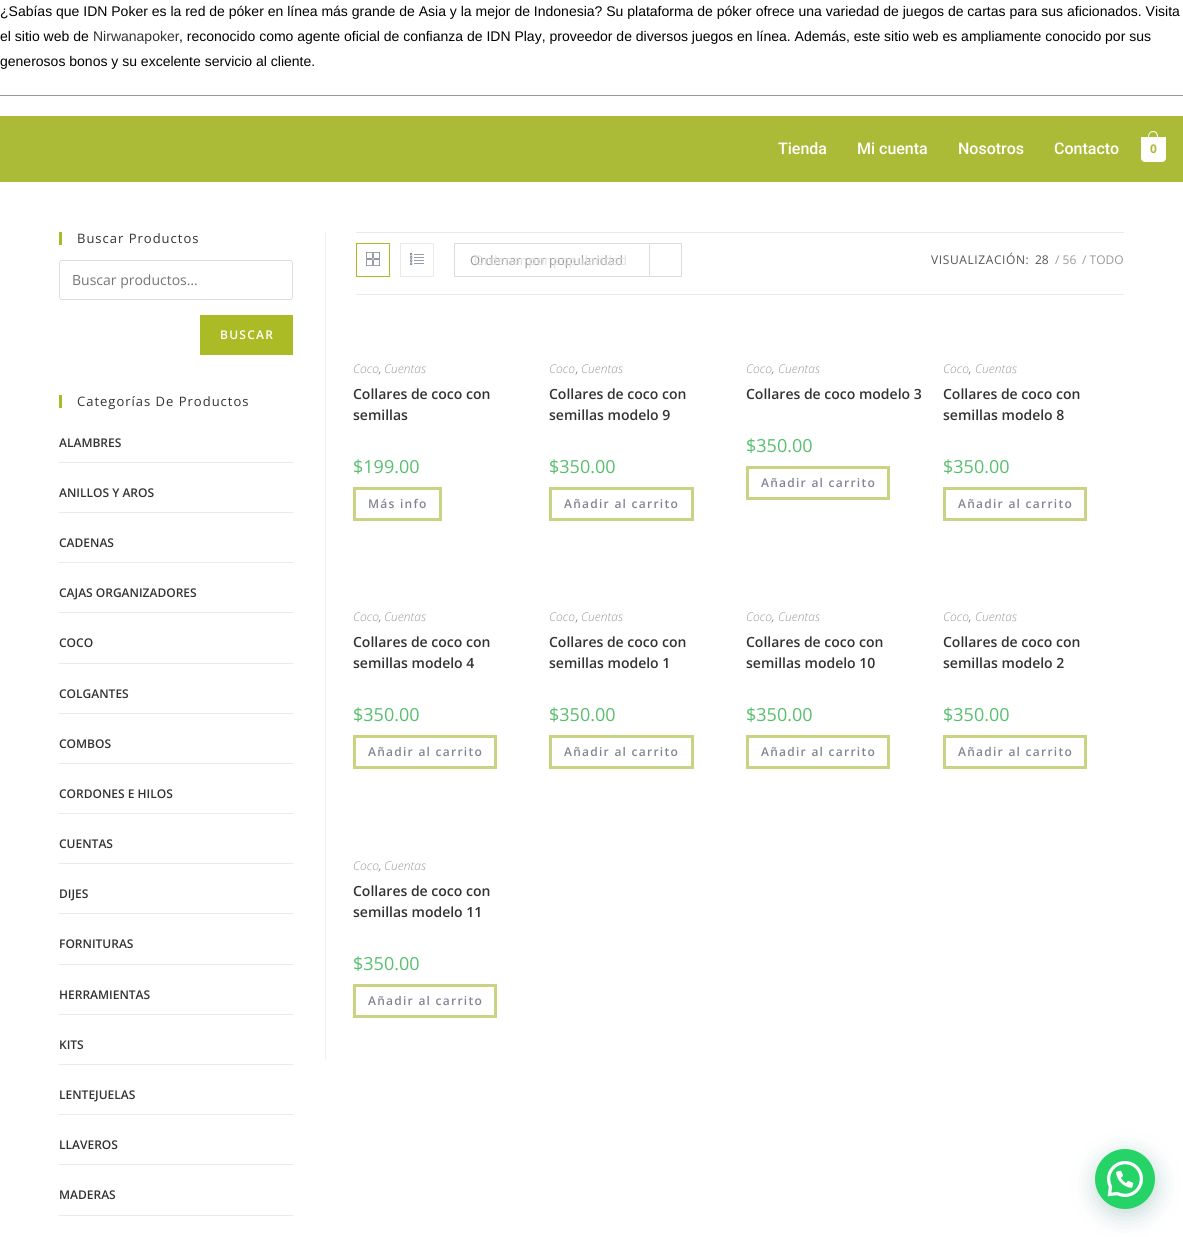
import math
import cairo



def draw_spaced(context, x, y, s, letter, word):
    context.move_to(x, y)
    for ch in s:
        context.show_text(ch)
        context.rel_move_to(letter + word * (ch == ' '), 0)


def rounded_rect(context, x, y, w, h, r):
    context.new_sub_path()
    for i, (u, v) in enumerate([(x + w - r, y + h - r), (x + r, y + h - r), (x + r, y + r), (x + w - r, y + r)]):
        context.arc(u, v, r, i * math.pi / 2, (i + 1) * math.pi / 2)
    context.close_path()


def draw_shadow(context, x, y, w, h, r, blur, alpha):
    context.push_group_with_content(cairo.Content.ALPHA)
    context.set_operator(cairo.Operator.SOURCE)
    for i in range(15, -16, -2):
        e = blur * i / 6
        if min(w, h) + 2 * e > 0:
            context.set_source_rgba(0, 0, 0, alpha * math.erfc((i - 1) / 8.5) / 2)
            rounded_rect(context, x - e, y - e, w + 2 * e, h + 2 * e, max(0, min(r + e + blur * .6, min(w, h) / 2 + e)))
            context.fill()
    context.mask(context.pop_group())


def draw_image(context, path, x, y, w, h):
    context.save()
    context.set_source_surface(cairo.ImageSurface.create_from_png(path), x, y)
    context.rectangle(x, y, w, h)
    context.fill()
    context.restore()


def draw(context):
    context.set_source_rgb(1, 1, 1)
    context.paint()
    context.set_source_rgb(153 / 255, 153 / 255, 153 / 255)
    context.rectangle(0, 95, 1183, 1)
    context.fill()
    context.set_source_rgb(171 / 255, 187 / 255, 56 / 255)
    context.rectangle(0, 116, 1183, 66)
    context.fill()
    context.set_source_rgb(1, 1, 1)
    context.new_path()
    context.move_to(1141.5, 137.5)
    context.line_to(1165.5, 137.5)
    context.line_to(1165.5, 158)
    context.curve_to(1165.5, 160, 1164, 161.5, 1162, 161.5)
    context.line_to(1145, 161.5)
    context.curve_to(1143, 161.5, 1141.5, 160, 1141.5, 158)
    context.close_path()
    context.fill_preserve()
    context.set_line_width(1)
    context.stroke()
    context.set_fill_rule(cairo.FillRule.EVEN_ODD)
    context.new_path()
    context.move_to(1153, 131)
    context.curve_to(1158.5, 131, 1158, 136.5, 1158, 140)
    context.line_to(1148, 140)
    context.curve_to(1148, 136.5, 1148, 131, 1153, 131)
    context.close_path()
    context.move_to(1153, 132)
    context.curve_to(1157.5, 132, 1157, 137, 1157, 140)
    context.line_to(1149, 140)
    context.curve_to(1149, 137, 1148.5, 132, 1153, 132)
    context.close_path()
    context.fill()
    context.set_source_rgb(171 / 255, 187 / 255, 37 / 255)
    context.rectangle(59, 232, 3, 13)
    context.fill()
    rounded_rect(context, 59.5, 260.5, 233, 39, 2.5)
    context.set_source_rgb(221 / 255, 221 / 255, 221 / 255)
    context.stroke()
    context.set_source_rgb(171 / 255, 187 / 255, 37 / 255)
    context.rectangle(200, 315, 93, 40)
    context.fill()
    context.rectangle(59, 395, 3, 13)
    context.fill()
    context.set_source_rgb(234 / 255, 234 / 255, 234 / 255)
    context.rectangle(59, 462, 234, 1)
    context.fill()
    context.rectangle(59, 512, 234, 1)
    context.fill()
    context.rectangle(59, 562, 234, 1)
    context.fill()
    context.rectangle(59, 612, 234, 1)
    context.fill()
    context.rectangle(59, 663, 234, 1)
    context.fill()
    context.rectangle(59, 713, 234, 1)
    context.fill()
    context.rectangle(59, 763, 234, 1)
    context.fill()
    context.rectangle(59, 813, 234, 1)
    context.fill()
    context.rectangle(59, 863, 234, 1)
    context.fill()
    context.rectangle(59, 913, 234, 1)
    context.fill()
    context.rectangle(59, 964, 234, 1)
    context.fill()
    context.rectangle(59, 1014, 234, 1)
    context.fill()
    context.rectangle(59, 1064, 234, 1)
    context.fill()
    context.rectangle(59, 1114, 234, 1)
    context.fill()
    context.rectangle(59, 1164, 234, 1)
    context.fill()
    context.rectangle(59, 1215, 234, 1)
    context.fill()
    context.set_source_rgb(241 / 255, 241 / 255, 241 / 255)
    context.rectangle(325, 232, 1, 828)
    context.fill()
    context.set_source_rgb(234 / 255, 234 / 255, 234 / 255)
    context.rectangle(356, 232, 768, 1)
    context.fill()
    context.rectangle(356, 294, 768, 1)
    context.fill()
    context.rectangle(356.5, 243.5, 33, 33)
    context.set_source_rgb(171 / 255, 187 / 255, 37 / 255)
    context.stroke()
    draw_image(context, "images/1.png", 366, 252, 14, 14)
    context.rectangle(400.5, 243.5, 33, 33)
    context.set_source_rgb(234 / 255, 234 / 255, 234 / 255)
    context.stroke()
    draw_image(context, "images/2.png", 410, 253, 14, 12)
    context.rectangle(454.5, 243.5, 227, 33)
    context.set_source_rgb(221 / 255, 221 / 255, 221 / 255)
    context.stroke()
    context.rectangle(649, 244, 1, 32)
    context.fill()
    context.rectangle(354.5, 488.5, 86, 31)
    context.set_source_rgb(202 / 255, 211 / 255, 129 / 255)
    context.set_line_width(3)
    context.stroke()
    context.rectangle(550.5, 488.5, 142, 31)
    context.stroke()
    context.rectangle(747.5, 467.5, 141, 31)
    context.stroke()
    context.rectangle(944.5, 488.5, 141, 31)
    context.stroke()
    context.rectangle(354.5, 736.5, 141, 31)
    context.stroke()
    context.rectangle(550.5, 736.5, 142, 31)
    context.stroke()
    context.rectangle(747.5, 736.5, 141, 31)
    context.stroke()
    context.rectangle(944.5, 736.5, 141, 31)
    context.stroke()
    context.rectangle(354.5, 985.5, 141, 31)
    context.stroke()
    context.set_source_rgb(7 / 255, 94 / 255, 84 / 255)
    draw_shadow(context, 1096, 1155, 60, 60, 30, 12, 0.24)
    context.set_source_rgb(37 / 255, 211 / 255, 102 / 255)
    context.arc(1125, 1179, 30, 0, 2 * math.pi)
    context.fill()
    draw_image(context, "images/3.png", 1107, 1161, 36, 36)
    context.select_font_face("Liberation Sans")
    context.set_font_size(14)
    context.set_source_rgb(0, 0, 0)
    context.move_to(0, 16)
    context.show_text("¿Sabías que IDN Poker es la red de póker en línea más grande de Asia y la mejor de Indonesia? Su plataforma de póker ofrece una variedad de juegos de cartas para sus aficionados. Visita")
    context.move_to(0, 41)
    context.show_text("el sitio web de")
    context.set_source_rgb(51 / 255, 51 / 255, 51 / 255)
    context.move_to(93, 41)
    context.show_text("Nirwanapoker")
    context.set_source_rgb(0, 0, 0)
    context.move_to(179, 41)
    context.show_text(", reconocido como agente oficial de confianza de IDN Play, proveedor de diversos juegos en línea. Además, este sitio web es ampliamente conocido por sus")
    context.move_to(0, 66)
    context.show_text("generosos bonos y su excelente servicio al cliente.")
    context.select_font_face("Roboto Medium")
    context.set_font_size(16)
    context.set_source_rgb(1, 1, 1)
    context.move_to(778, 154)
    context.show_text("Tienda")
    context.move_to(857, 154)
    context.show_text("Mi cuenta")
    context.move_to(958, 154)
    context.show_text("Nosotros")
    context.move_to(1054, 154)
    context.show_text("Contacto")
    context.select_font_face("Open Sans", cairo.FontSlant.NORMAL, cairo.FontWeight.BOLD)
    context.set_font_size(12)
    context.set_source_rgb(171 / 255, 187 / 255, 56 / 255)
    context.move_to(1150, 153)
    context.show_text("0")
    context.select_font_face("Open Sans")
    context.set_font_size(13)
    context.set_source_rgb(51 / 255, 51 / 255, 51 / 255)
    draw_spaced(context, 77, 243, "Buscar Productos", 1, 0)
    context.set_font_size(14)
    context.set_source_rgb(117 / 255, 117 / 255, 117 / 255)
    context.move_to(72, 285)
    context.show_text("Buscar productos…")
    context.select_font_face("Open Sans SemiBold")
    context.set_font_size(12)
    context.set_source_rgb(1, 1, 1)
    draw_spaced(context, 220, 339, "BUSCAR", 1.25, 0)
    context.select_font_face("Open Sans")
    context.set_font_size(13)
    context.set_source_rgb(51 / 255, 51 / 255, 51 / 255)
    draw_spaced(context, 77, 406, "Categorías De Productos", 1, 0)
    context.select_font_face("Open Sans SemiBold")
    context.set_font_size(12)
    context.move_to(59, 447)
    context.show_text("ALAMBRES")
    context.move_to(59, 497)
    context.show_text("ANILLOS Y AROS")
    context.move_to(59, 547)
    context.show_text("CADENAS")
    context.move_to(59, 597)
    context.show_text("CAJAS ORGANIZADORES")
    context.move_to(59, 647)
    context.show_text("COCO")
    context.move_to(59, 698)
    context.show_text("COLGANTES")
    context.move_to(59, 748)
    context.show_text("COMBOS")
    context.move_to(59, 798)
    context.show_text("CORDONES E HILOS")
    context.move_to(59, 848)
    context.show_text("CUENTAS")
    context.move_to(59, 898)
    context.show_text("DIJES")
    context.move_to(59, 948)
    context.show_text("FORNITURAS")
    context.move_to(59, 999)
    context.show_text("HERRAMIENTAS")
    context.move_to(59, 1049)
    context.show_text("KITS")
    context.move_to(59, 1099)
    context.show_text("LENTEJUELAS")
    context.move_to(59, 1149)
    context.show_text("LLAVEROS")
    context.move_to(59, 1199)
    context.show_text("MADERAS")
    context.select_font_face("Open Sans")
    context.set_font_size(13)
    context.set_source_rgb(153 / 255, 153 / 255, 153 / 255)
    context.move_to(470, 265)
    context.show_text("Ordenar por popularidad")
    context.set_source_rgb(225 / 255, 225 / 255, 225 / 255)
    context.move_to(474, 265)
    context.show_text("Ordenar por popularidad")
    context.set_font_size(12)
    context.set_source_rgb(85 / 255, 85 / 255, 85 / 255)
    draw_spaced(context, 931, 264, "VISUALIZACIÓN:", 0.6, 0)
    context.move_to(1035, 264)
    context.show_text("28")
    context.set_source_rgb(153 / 255, 153 / 255, 153 / 255)
    context.move_to(1055, 264)
    context.show_text("/ 56")
    context.move_to(1082, 264)
    context.show_text("/ TODO")
    context.select_font_face("Open Sans Light", cairo.FontSlant.ITALIC)
    context.move_to(353, 373)
    context.show_text("Coco")
    context.move_to(384, 373)
    context.show_text("Cuentas")
    context.set_source_rgb(74 / 255, 74 / 255, 74 / 255)
    context.move_to(379, 373)
    context.show_text(",")
    context.select_font_face("Open Sans SemiBold")
    context.set_font_size(14)
    context.set_source_rgb(51 / 255, 51 / 255, 51 / 255)
    context.move_to(353, 399)
    context.show_text("Collares de coco con")
    context.move_to(353, 420)
    context.show_text("semillas")
    context.select_font_face("Open Sans")
    context.set_font_size(18)
    context.set_source_rgb(87 / 255, 191 / 255, 109 / 255)
    context.move_to(353, 473)
    context.show_text("$199.00")
    context.select_font_face("Open Sans SemiBold")
    context.set_font_size(12)
    context.set_source_rgb(132 / 255, 132 / 255, 148 / 255)
    draw_spaced(context, 368, 508, "Más info", 1.25, 0)
    context.select_font_face("Open Sans Light", cairo.FontSlant.ITALIC)
    context.set_source_rgb(153 / 255, 153 / 255, 153 / 255)
    context.move_to(549, 373)
    context.show_text("Coco")
    context.set_source_rgb(74 / 255, 74 / 255, 74 / 255)
    context.move_to(576, 373)
    context.show_text(",")
    context.set_source_rgb(153 / 255, 153 / 255, 153 / 255)
    context.move_to(581, 373)
    context.show_text("Cuentas")
    context.select_font_face("Open Sans SemiBold")
    context.set_font_size(14)
    context.set_source_rgb(51 / 255, 51 / 255, 51 / 255)
    context.move_to(549, 399)
    context.show_text("Collares de coco con")
    context.move_to(549, 420)
    context.show_text("semillas modelo 9")
    context.select_font_face("Open Sans")
    context.set_font_size(18)
    context.set_source_rgb(87 / 255, 191 / 255, 109 / 255)
    context.move_to(549, 473)
    context.show_text("$350.00")
    context.select_font_face("Open Sans SemiBold")
    context.set_font_size(12)
    context.set_source_rgb(132 / 255, 132 / 255, 148 / 255)
    draw_spaced(context, 564, 508, "Añadir al carrito", 1.25, 0)
    context.select_font_face("Open Sans Light", cairo.FontSlant.ITALIC)
    context.set_source_rgb(153 / 255, 153 / 255, 153 / 255)
    context.move_to(746, 373)
    context.show_text("Coco")
    context.set_source_rgb(74 / 255, 74 / 255, 74 / 255)
    context.move_to(772, 373)
    context.show_text(",")
    context.set_source_rgb(153 / 255, 153 / 255, 153 / 255)
    context.move_to(778, 373)
    context.show_text("Cuentas")
    context.select_font_face("Open Sans SemiBold")
    context.set_font_size(14)
    context.set_source_rgb(51 / 255, 51 / 255, 51 / 255)
    context.move_to(746, 399)
    context.show_text("Collares de coco modelo 3")
    context.select_font_face("Open Sans")
    context.set_font_size(18)
    context.set_source_rgb(87 / 255, 191 / 255, 109 / 255)
    context.move_to(746, 452)
    context.show_text("$350.00")
    context.select_font_face("Open Sans SemiBold")
    context.set_font_size(12)
    context.set_source_rgb(132 / 255, 132 / 255, 148 / 255)
    draw_spaced(context, 761, 487, "Añadir al carrito", 1.25, 0)
    context.select_font_face("Open Sans Light", cairo.FontSlant.ITALIC)
    context.set_source_rgb(153 / 255, 153 / 255, 153 / 255)
    context.move_to(943, 373)
    context.show_text("Coco")
    context.set_source_rgb(74 / 255, 74 / 255, 74 / 255)
    context.move_to(969, 373)
    context.show_text(",")
    context.set_source_rgb(153 / 255, 153 / 255, 153 / 255)
    context.move_to(975, 373)
    context.show_text("Cuentas")
    context.select_font_face("Open Sans SemiBold")
    context.set_font_size(14)
    context.set_source_rgb(51 / 255, 51 / 255, 51 / 255)
    context.move_to(943, 399)
    context.show_text("Collares de coco con")
    context.move_to(943, 420)
    context.show_text("semillas modelo 8")
    context.select_font_face("Open Sans")
    context.set_font_size(18)
    context.set_source_rgb(87 / 255, 191 / 255, 109 / 255)
    context.move_to(943, 473)
    context.show_text("$350.00")
    context.select_font_face("Open Sans SemiBold")
    context.set_font_size(12)
    context.set_source_rgb(132 / 255, 132 / 255, 148 / 255)
    draw_spaced(context, 958, 508, "Añadir al carrito", 1.25, 0)
    context.select_font_face("Open Sans Light", cairo.FontSlant.ITALIC)
    context.set_source_rgb(153 / 255, 153 / 255, 153 / 255)
    context.move_to(353, 621)
    context.show_text("Coco")
    context.move_to(384, 621)
    context.show_text("Cuentas")
    context.set_source_rgb(74 / 255, 74 / 255, 74 / 255)
    context.move_to(379, 621)
    context.show_text(",")
    context.select_font_face("Open Sans SemiBold")
    context.set_font_size(14)
    context.set_source_rgb(51 / 255, 51 / 255, 51 / 255)
    context.move_to(353, 647)
    context.show_text("Collares de coco con")
    context.move_to(353, 668)
    context.show_text("semillas modelo 4")
    context.select_font_face("Open Sans")
    context.set_font_size(18)
    context.set_source_rgb(87 / 255, 191 / 255, 109 / 255)
    context.move_to(353, 721)
    context.show_text("$350.00")
    context.select_font_face("Open Sans SemiBold")
    context.set_font_size(12)
    context.set_source_rgb(132 / 255, 132 / 255, 148 / 255)
    draw_spaced(context, 368, 756, "Añadir al carrito", 1.25, 0)
    context.select_font_face("Open Sans Light", cairo.FontSlant.ITALIC)
    context.set_source_rgb(153 / 255, 153 / 255, 153 / 255)
    context.move_to(549, 621)
    context.show_text("Coco")
    context.set_source_rgb(74 / 255, 74 / 255, 74 / 255)
    context.move_to(576, 621)
    context.show_text(",")
    context.set_source_rgb(153 / 255, 153 / 255, 153 / 255)
    context.move_to(581, 621)
    context.show_text("Cuentas")
    context.select_font_face("Open Sans SemiBold")
    context.set_font_size(14)
    context.set_source_rgb(51 / 255, 51 / 255, 51 / 255)
    context.move_to(549, 647)
    context.show_text("Collares de coco con")
    context.move_to(549, 668)
    context.show_text("semillas modelo 1")
    context.select_font_face("Open Sans")
    context.set_font_size(18)
    context.set_source_rgb(87 / 255, 191 / 255, 109 / 255)
    context.move_to(549, 721)
    context.show_text("$350.00")
    context.select_font_face("Open Sans SemiBold")
    context.set_font_size(12)
    context.set_source_rgb(132 / 255, 132 / 255, 148 / 255)
    draw_spaced(context, 564, 756, "Añadir al carrito", 1.25, 0)
    context.select_font_face("Open Sans Light", cairo.FontSlant.ITALIC)
    context.set_source_rgb(153 / 255, 153 / 255, 153 / 255)
    context.move_to(746, 621)
    context.show_text("Coco")
    context.set_source_rgb(74 / 255, 74 / 255, 74 / 255)
    context.move_to(772, 621)
    context.show_text(",")
    context.set_source_rgb(153 / 255, 153 / 255, 153 / 255)
    context.move_to(778, 621)
    context.show_text("Cuentas")
    context.select_font_face("Open Sans SemiBold")
    context.set_font_size(14)
    context.set_source_rgb(51 / 255, 51 / 255, 51 / 255)
    context.move_to(746, 647)
    context.show_text("Collares de coco con")
    context.move_to(746, 668)
    context.show_text("semillas modelo 10")
    context.select_font_face("Open Sans")
    context.set_font_size(18)
    context.set_source_rgb(87 / 255, 191 / 255, 109 / 255)
    context.move_to(746, 721)
    context.show_text("$350.00")
    context.select_font_face("Open Sans SemiBold")
    context.set_font_size(12)
    context.set_source_rgb(132 / 255, 132 / 255, 148 / 255)
    draw_spaced(context, 761, 756, "Añadir al carrito", 1.25, 0)
    context.select_font_face("Open Sans Light", cairo.FontSlant.ITALIC)
    context.set_source_rgb(153 / 255, 153 / 255, 153 / 255)
    context.move_to(943, 621)
    context.show_text("Coco")
    context.set_source_rgb(74 / 255, 74 / 255, 74 / 255)
    context.move_to(969, 621)
    context.show_text(",")
    context.set_source_rgb(153 / 255, 153 / 255, 153 / 255)
    context.move_to(975, 621)
    context.show_text("Cuentas")
    context.select_font_face("Open Sans SemiBold")
    context.set_font_size(14)
    context.set_source_rgb(51 / 255, 51 / 255, 51 / 255)
    context.move_to(943, 647)
    context.show_text("Collares de coco con")
    context.move_to(943, 668)
    context.show_text("semillas modelo 2")
    context.select_font_face("Open Sans")
    context.set_font_size(18)
    context.set_source_rgb(87 / 255, 191 / 255, 109 / 255)
    context.move_to(943, 721)
    context.show_text("$350.00")
    context.select_font_face("Open Sans SemiBold")
    context.set_font_size(12)
    context.set_source_rgb(132 / 255, 132 / 255, 148 / 255)
    draw_spaced(context, 958, 756, "Añadir al carrito", 1.25, 0)
    context.select_font_face("Open Sans Light", cairo.FontSlant.ITALIC)
    context.set_source_rgb(153 / 255, 153 / 255, 153 / 255)
    context.move_to(353, 870)
    context.show_text("Coco")
    context.move_to(384, 870)
    context.show_text("Cuentas")
    context.set_source_rgb(74 / 255, 74 / 255, 74 / 255)
    context.move_to(379, 870)
    context.show_text(",")
    context.select_font_face("Open Sans SemiBold")
    context.set_font_size(14)
    context.set_source_rgb(51 / 255, 51 / 255, 51 / 255)
    context.move_to(353, 896)
    context.show_text("Collares de coco con")
    context.move_to(353, 917)
    context.show_text("semillas modelo 11")
    context.select_font_face("Open Sans")
    context.set_font_size(18)
    context.set_source_rgb(87 / 255, 191 / 255, 109 / 255)
    context.move_to(353, 970)
    context.show_text("$350.00")
    context.select_font_face("Open Sans SemiBold")
    context.set_font_size(12)
    context.set_source_rgb(132 / 255, 132 / 255, 148 / 255)
    draw_spaced(context, 368, 1005, "Añadir al carrito", 1.25, 0)


surface = cairo.ImageSurface(cairo.Format.RGB24, 1183, 1237)
context = cairo.Context(surface)
options = cairo.FontOptions()
options.set_hint_metrics(cairo.HintMetrics.OFF)
options.set_hint_style(cairo.HintStyle.NONE)
context.set_font_options(options)
context.set_miter_limit(4)
draw(context)
surface.write_to_png("out.png")
